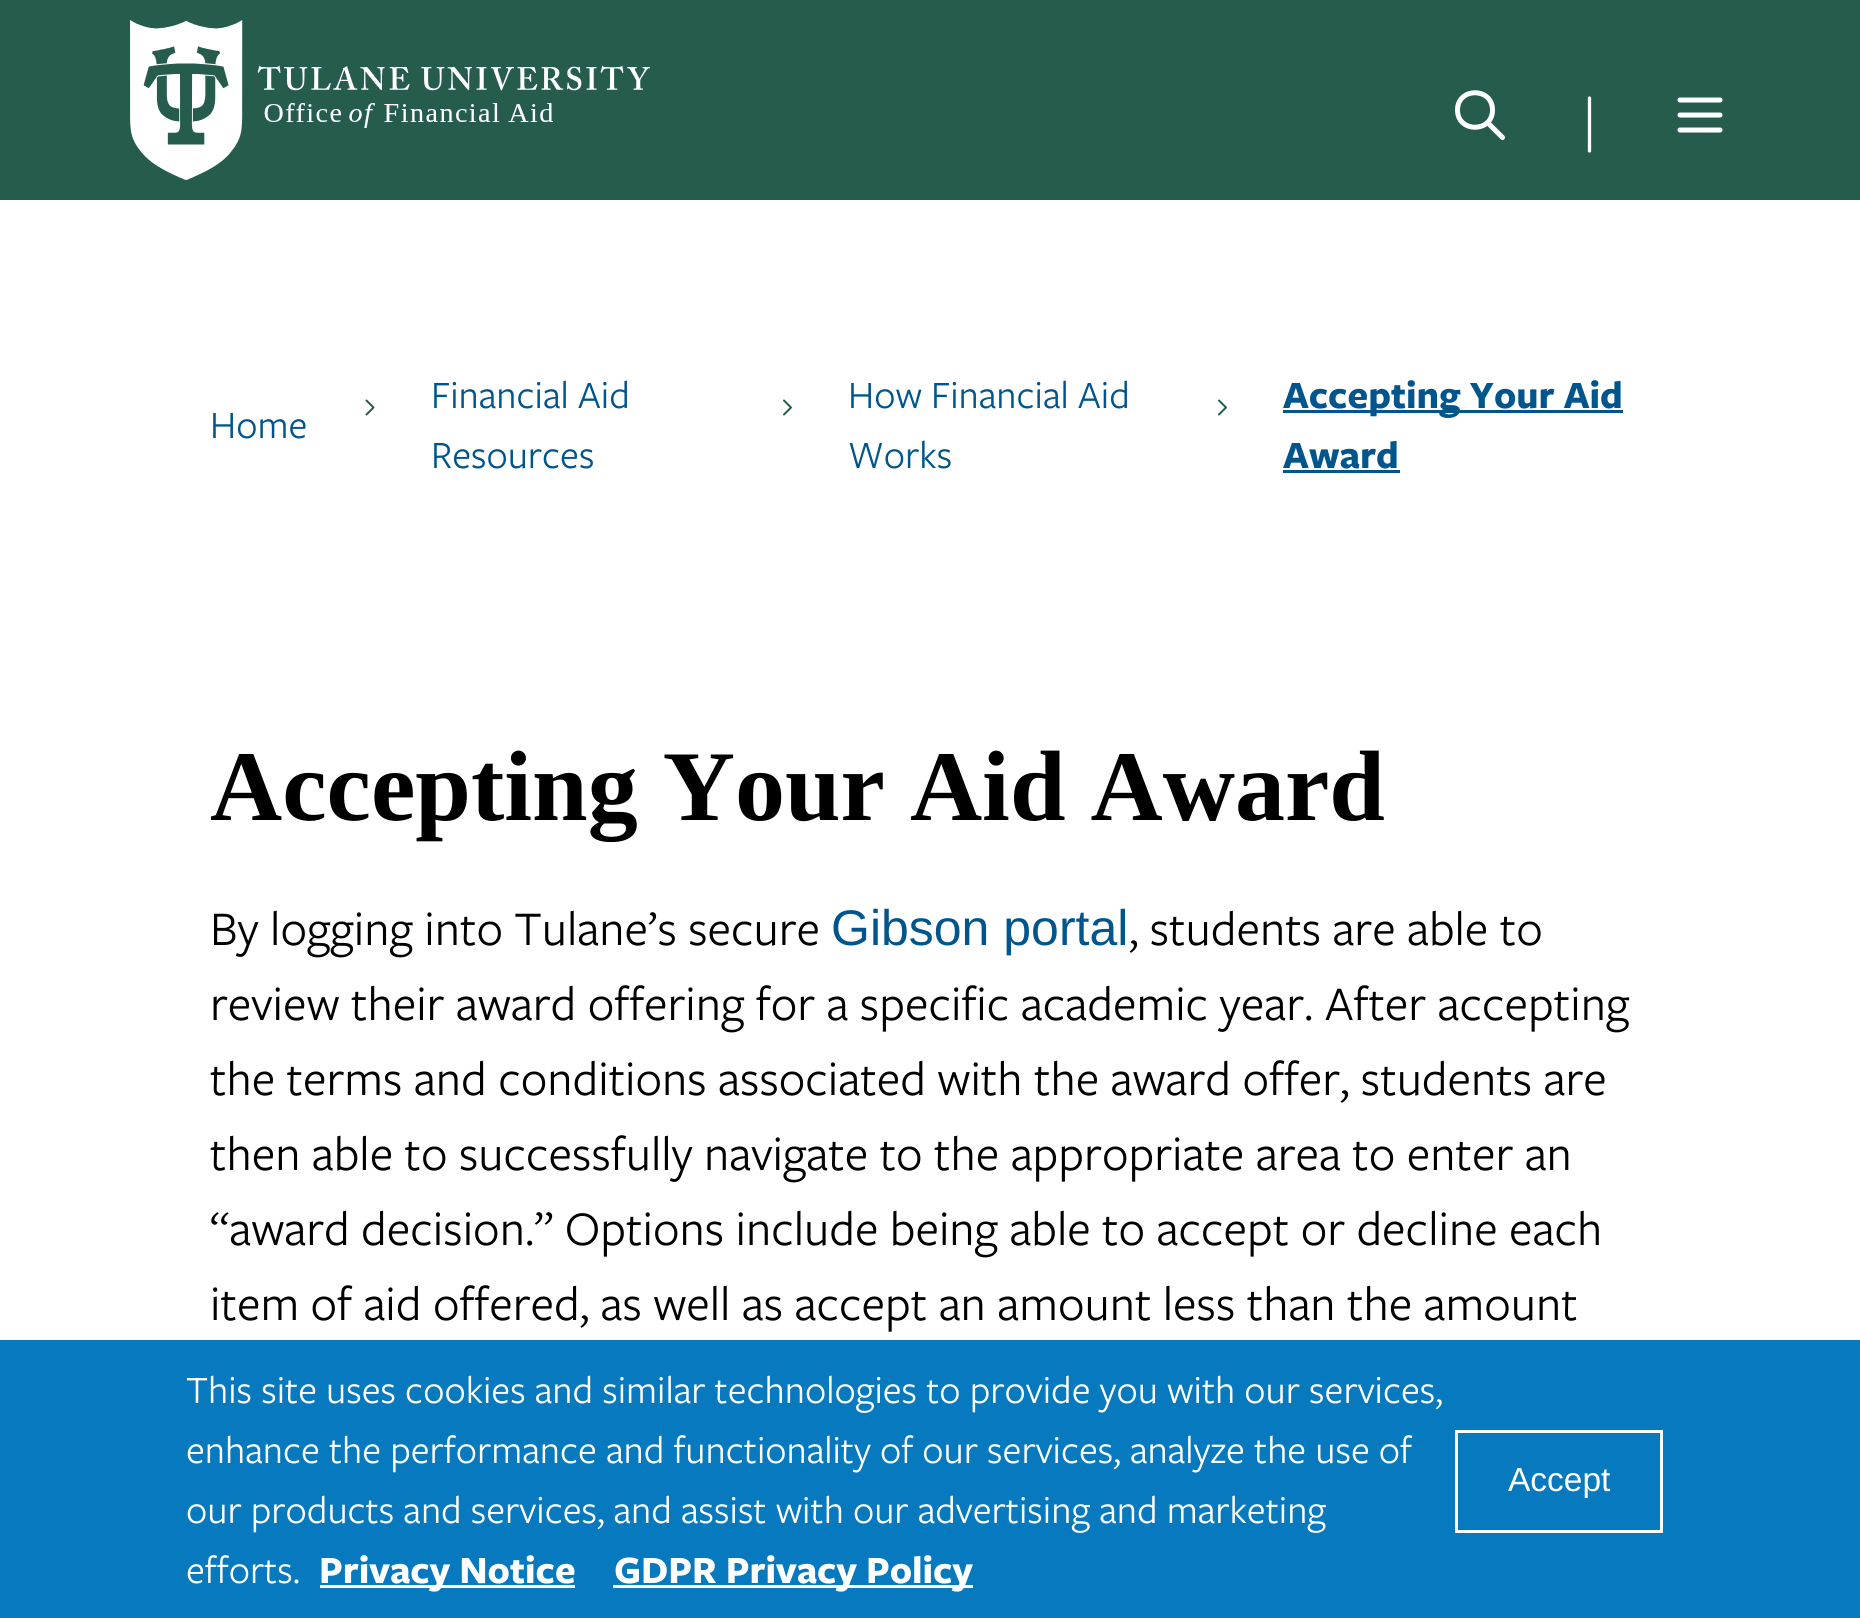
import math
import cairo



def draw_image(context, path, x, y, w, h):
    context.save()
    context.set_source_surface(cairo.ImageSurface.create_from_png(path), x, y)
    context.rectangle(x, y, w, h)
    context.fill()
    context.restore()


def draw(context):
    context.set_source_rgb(1, 1, 1)
    context.paint()
    context.set_source_rgb(37 / 255, 92 / 255, 78 / 255)
    context.rectangle(0, 0, 1860, 200)
    context.fill()
    draw_image(context, "images/1.png", 130, 20, 520, 160)
    context.new_path()
    context.move_to(1502.5, 137.5)
    context.line_to(1487.5, 122.5)
    context.move_to(1492.5, 110)
    context.curve_to(1492.5, 133, 1457.5, 133, 1457.5, 110)
    context.curve_to(1457.5, 87, 1492.5, 87, 1492.5, 110)
    context.close_path()
    context.set_source_rgb(1, 1, 1)
    context.set_line_width(5)
    context.set_line_cap(cairo.LineCap.ROUND)
    context.set_line_join(cairo.LineJoin.ROUND)
    context.stroke()
    context.new_path()
    context.move_to(1589.5, 151)
    context.line_to(1589.5, 98)
    context.set_line_width(3.3)
    context.stroke()
    context.new_path()
    context.move_to(1680, 100)
    context.line_to(1720, 100)
    context.move_to(1680, 115)
    context.line_to(1720, 115)
    context.move_to(1680, 130)
    context.line_to(1720, 130)
    context.set_line_width(5)
    context.stroke()
    context.new_path()
    context.move_to(366.5, 400.5)
    context.line_to(373.5, 407.5)
    context.line_to(366.5, 414.5)
    context.set_source_rgb(37 / 255, 92 / 255, 78 / 255)
    context.set_line_width(2)
    context.stroke()
    context.new_path()
    context.move_to(784, 400.5)
    context.line_to(791, 407.5)
    context.line_to(784, 414.5)
    context.stroke()
    context.new_path()
    context.move_to(1219, 400.5)
    context.line_to(1226, 407.5)
    context.line_to(1219, 414.5)
    context.stroke()
    context.set_source_rgb(0, 85 / 255, 140 / 255)
    context.rectangle(1283, 410, 340, 3)
    context.fill()
    context.rectangle(1283, 470, 117, 3)
    context.fill()
    context.set_source_rgb(7 / 255, 121 / 255, 191 / 255)
    context.rectangle(0, 1340, 1860, 278)
    context.fill()
    context.set_source_rgb(1, 1, 1)
    context.rectangle(320, 1585, 255, 3)
    context.fill()
    context.rectangle(613, 1585, 360, 3)
    context.fill()
    context.rectangle(1456.5, 1431.5, 205, 100)
    context.set_line_width(3)
    context.set_line_cap(cairo.LineCap.BUTT)
    context.set_line_join(cairo.LineJoin.MITER)
    context.stroke()
    context.select_font_face("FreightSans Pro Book")
    context.set_font_size(40)
    context.set_source_rgb(0, 85 / 255, 140 / 255)
    context.move_to(431, 408)
    context.show_text("Financial Aid")
    context.move_to(431, 468)
    context.show_text("Resources")
    context.move_to(848, 408)
    context.show_text("How Financial Aid")
    context.move_to(848, 468)
    context.show_text("Works")
    context.select_font_face("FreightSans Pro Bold", cairo.FontSlant.NORMAL, cairo.FontWeight.BOLD)
    context.move_to(1283, 408)
    context.show_text("Accepting Your Aid")
    context.move_to(1283, 468)
    context.show_text("Award")
    context.select_font_face("FreightSans Pro Book")
    context.move_to(210, 438)
    context.show_text("Home")
    context.select_font_face("Liberation Serif", cairo.FontSlant.NORMAL, cairo.FontWeight.BOLD)
    context.set_font_size(100)
    context.set_source_rgb(0, 0, 0)
    context.move_to(210, 820)
    context.show_text("Accepting Your Aid Award")
    context.select_font_face("FreightSans Pro Book")
    context.set_font_size(50)
    context.move_to(210, 945)
    context.show_text("By logging into Tulane’s secure")
    context.select_font_face("Liberation Sans")
    context.set_source_rgb(0, 85 / 255, 140 / 255)
    context.move_to(831, 945)
    context.show_text("Gibson portal")
    context.select_font_face("FreightSans Pro Book")
    context.set_source_rgb(0, 0, 0)
    context.move_to(1129, 945)
    context.show_text(", students are able to")
    context.move_to(210, 1020)
    context.show_text("review their award offering for a specific academic year. After accepting")
    context.move_to(210, 1095)
    context.show_text("the terms and conditions associated with the award offer, students are")
    context.move_to(210, 1170)
    context.show_text("then able to successfully navigate to the appropriate area to enter an")
    context.move_to(210, 1245)
    context.show_text("“award decision.” Options include being able to accept or decline each")
    context.move_to(210, 1320)
    context.show_text("item of aid offered, as well as accept an amount less than the amount")
    context.set_font_size(40)
    context.set_source_rgb(1, 1, 1)
    context.move_to(186, 1403)
    context.show_text("This site uses cookies and similar technologies to provide you with our services,")
    context.move_to(186, 1463)
    context.show_text("enhance the performance and functionality of our services, analyze the use of")
    context.move_to(186, 1523)
    context.show_text("our products and services, and assist with our advertising and marketing")
    context.move_to(186, 1583)
    context.show_text("efforts.")
    context.select_font_face("FreightSans Pro Bold", cairo.FontSlant.NORMAL, cairo.FontWeight.BOLD)
    context.move_to(319, 1583)
    context.show_text("Privacy Notice")
    context.move_to(614, 1583)
    context.show_text("GDPR Privacy Policy")
    context.select_font_face("Liberation Sans")
    context.set_font_size(33.5)
    context.move_to(1508, 1491)
    context.show_text("Accept")


surface = cairo.ImageSurface(cairo.Format.RGB24, 1860, 1618)
context = cairo.Context(surface)
options = cairo.FontOptions()
options.set_hint_metrics(cairo.HintMetrics.OFF)
options.set_hint_style(cairo.HintStyle.NONE)
context.set_font_options(options)
context.set_miter_limit(4)
draw(context)
surface.write_to_png("out.png")
